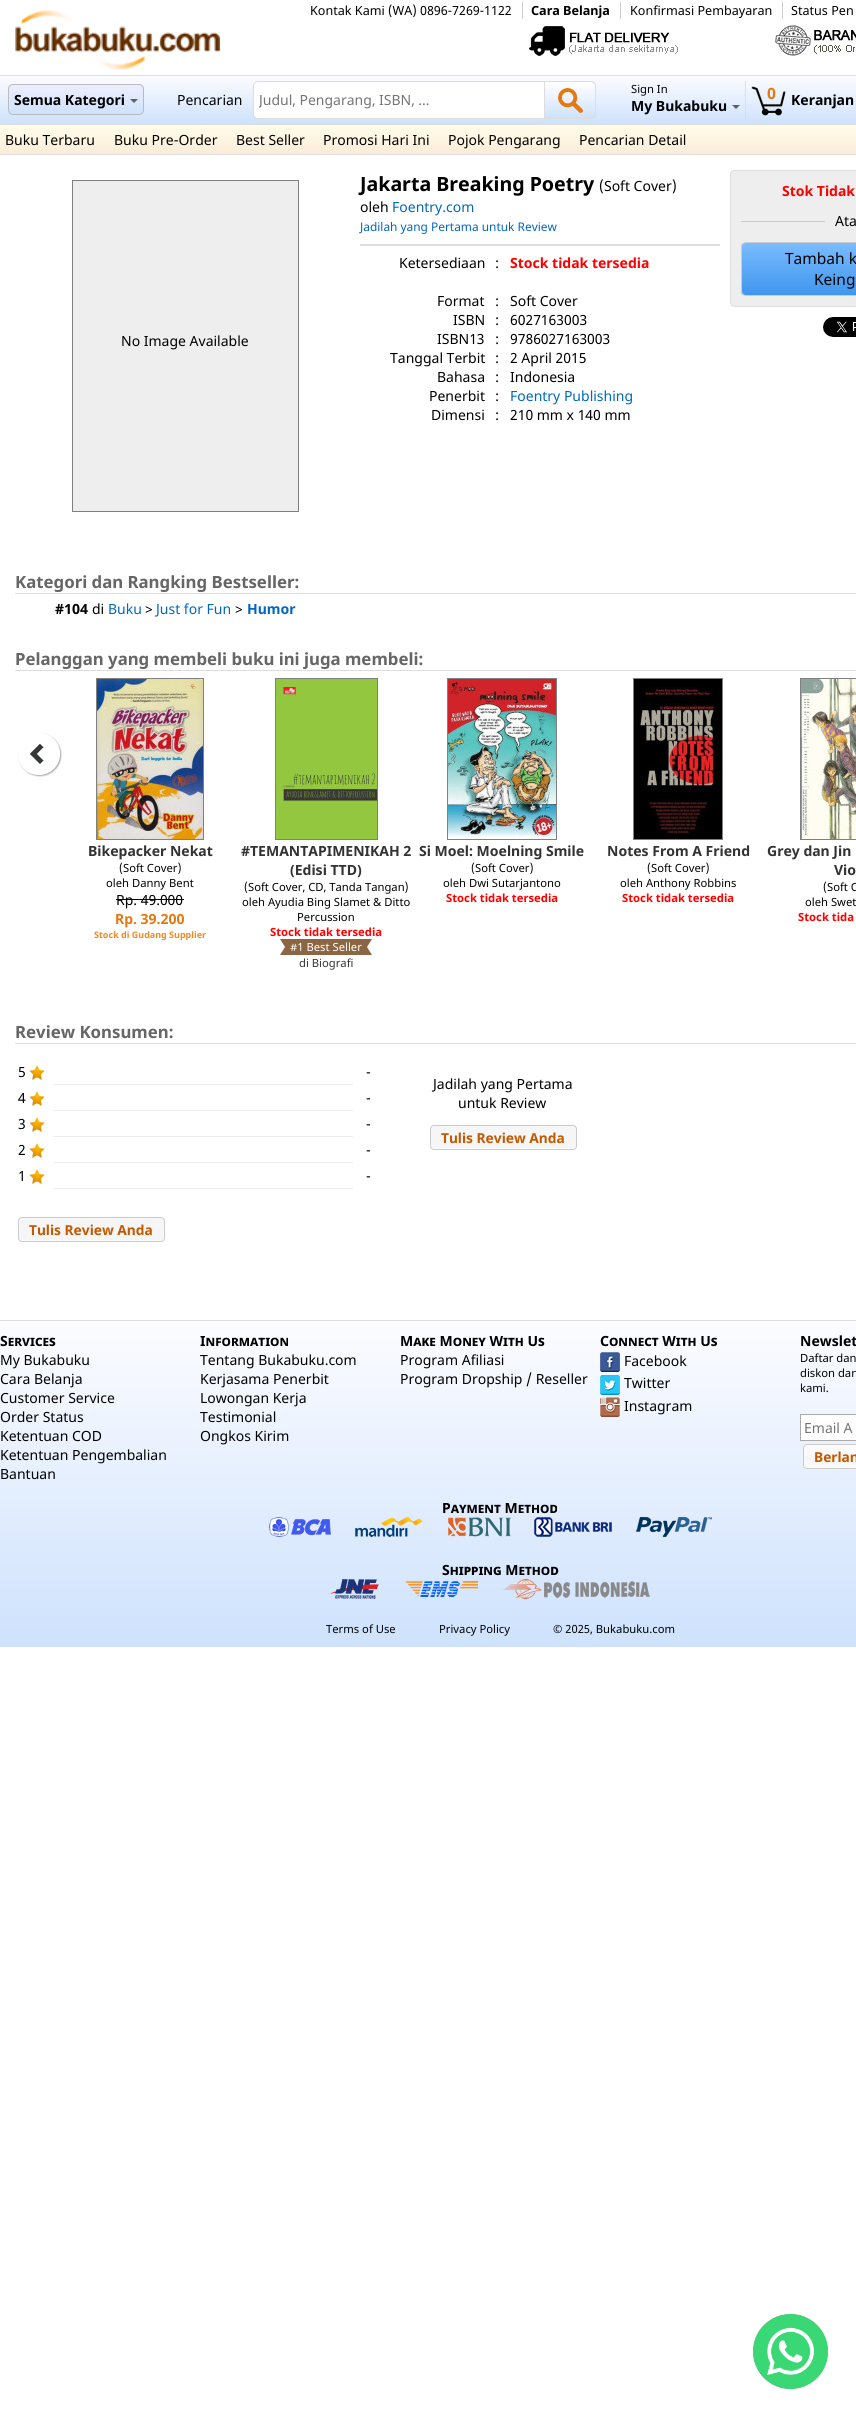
import math
import cairo



def rounded_rect(context, x, y, w, h, r):
    context.new_sub_path()
    for i, (u, v) in enumerate([(x + w - r, y + h - r), (x + r, y + h - r), (x + r, y + r), (x + w - r, y + r)]):
        context.arc(u, v, r, i * math.pi / 2, (i + 1) * math.pi / 2)
    context.close_path()


def draw_image(context, path, x, y, w, h):
    context.save()
    context.set_source_surface(cairo.ImageSurface.create_from_png(path), x, y)
    context.rectangle(x, y, w, h)
    context.fill()
    context.restore()


def draw(context):
    context.set_source_rgb(1, 1, 1)
    context.paint()
    context.set_source_rgb(204 / 255, 204 / 255, 204 / 255)
    context.rectangle(522, 2, 1, 17)
    context.fill()
    context.rectangle(620, 2, 1, 17)
    context.fill()
    context.rectangle(782, 2, 1, 17)
    context.fill()
    context.set_source_rgb(221 / 255, 221 / 255, 221 / 255)
    context.rectangle(0, 75, 856, 1)
    context.fill()
    draw_image(context, "images/1.png", 15, 10, 205, 60)
    draw_image(context, "images/2.png", 529, 26, 149, 30)
    draw_image(context, "images/3.png", 775, 25, 81, 31)
    gradient = cairo.LinearGradient(490, 76, 490, 124)
    gradient.add_color_stop_rgba(0, 252 / 255, 252 / 255, 1, 1)
    gradient.add_color_stop_rgba(1, 206 / 255, 226 / 255, 253 / 255, 1)
    context.set_source(gradient)
    context.rectangle(0, 76, 856, 48)
    context.fill()
    context.set_source_rgb(221 / 255, 221 / 255, 221 / 255)
    context.rectangle(0, 124, 856, 1)
    context.fill()
    context.save()
    rounded_rect(context, 8, 84, 136, 31, 5)
    context.clip()
    gradient = cairo.LinearGradient(76, 85, 76, 114)
    gradient.add_color_stop_rgba(0, 238 / 255, 238 / 255, 1, 1)
    gradient.add_color_stop_rgba(1, 206 / 255, 226 / 255, 253 / 255, 1)
    context.set_source(gradient)
    context.rectangle(8, 85, 136, 29)
    context.fill()
    context.restore()
    rounded_rect(context, 8.5, 84.5, 135, 30, 4.5)
    context.set_source_rgb(187 / 255, 187 / 255, 187 / 255)
    context.set_line_width(1)
    context.stroke()
    context.set_source_rgb(96 / 255, 96 / 255, 96 / 255)
    context.new_path()
    context.move_to(130, 99)
    context.line_to(138, 99)
    context.line_to(134, 103)
    context.close_path()
    context.fill()
    context.set_source_rgb(1, 1, 1)
    context.new_path()
    context.move_to(258, 81.5)
    context.line_to(544.5, 81.5)
    context.line_to(544.5, 118.5)
    context.line_to(258, 118.5)
    context.curve_to(255.5, 118.5, 253.5, 116.5, 253.5, 114)
    context.line_to(253.5, 86)
    context.curve_to(253.5, 83.5, 255.5, 81.5, 258, 81.5)
    context.close_path()
    context.fill_preserve()
    context.set_source_rgb(221 / 255, 221 / 255, 221 / 255)
    context.stroke()
    context.save()
    context.new_path()
    context.move_to(545, 81)
    context.line_to(591, 81)
    context.curve_to(594, 81, 596, 83, 596, 86)
    context.line_to(596, 114)
    context.curve_to(596, 117, 594, 119, 591, 119)
    context.line_to(545, 119)
    context.close_path()
    context.clip()
    gradient = cairo.LinearGradient(570, 82, 570, 118)
    gradient.add_color_stop_rgba(0, 1, 1, 1, 1)
    gradient.add_color_stop_rgba(1, 206 / 255, 226 / 255, 253 / 255, 1)
    context.set_source(gradient)
    context.rectangle(545, 82, 51, 36)
    context.fill()
    context.restore()
    context.set_fill_rule(cairo.FillRule.EVEN_ODD)
    context.new_path()
    context.move_to(545, 81)
    context.line_to(591, 81)
    context.curve_to(594, 81, 596, 83, 596, 86)
    context.line_to(596, 114)
    context.curve_to(596, 117, 594, 119, 591, 119)
    context.line_to(545, 119)
    context.close_path()
    context.move_to(545, 82)
    context.line_to(591, 82)
    context.curve_to(593, 82, 595, 84, 595, 86)
    context.line_to(595, 114)
    context.curve_to(595, 116, 593, 118, 591, 118)
    context.line_to(545, 118)
    context.close_path()
    context.fill()
    draw_image(context, "images/4.png", 558, 88, 25, 25)
    context.rectangle(745, 81, 1, 38)
    context.fill()
    context.set_source_rgb(96 / 255, 96 / 255, 96 / 255)
    context.set_fill_rule(cairo.FillRule.WINDING)
    context.new_path()
    context.move_to(732, 105)
    context.line_to(740, 105)
    context.line_to(736, 109)
    context.close_path()
    context.fill()
    draw_image(context, "images/5.png", 751, 86, 35, 30)
    gradient = cairo.LinearGradient(490, 125, 490, 154)
    gradient.add_color_stop_rgba(0, 1, 253 / 255, 234 / 255, 1)
    gradient.add_color_stop_rgba(1, 251 / 255, 236 / 255, 217 / 255, 1)
    context.set_source(gradient)
    context.rectangle(0, 125, 856, 29)
    context.fill()
    context.set_source_rgb(221 / 255, 221 / 255, 221 / 255)
    context.rectangle(0, 154, 856, 1)
    context.fill()
    context.rectangle(360, 244, 360, 2)
    context.fill()
    context.set_source_rgb(238 / 255, 238 / 255, 238 / 255)
    rounded_rect(context, 730.5, 170.5, 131, 136, 4.5)
    context.fill_preserve()
    context.set_source_rgb(221 / 255, 221 / 255, 221 / 255)
    context.stroke()
    context.set_source_rgb(204 / 255, 204 / 255, 204 / 255)
    context.rectangle(741, 221, 84, 1)
    context.fill()
    context.save()
    rounded_rect(context, 741, 242, 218, 54, 5)
    context.clip()
    gradient = cairo.LinearGradient(850, 243, 850, 295)
    gradient.add_color_stop_rgba(0, 122 / 255, 188 / 255, 1, 1)
    gradient.add_color_stop_rgba(1, 64 / 255, 150 / 255, 238 / 255, 1)
    context.set_source(gradient)
    context.rectangle(741, 243, 115, 52)
    context.fill()
    context.restore()
    rounded_rect(context, 741.5, 242.5, 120, 53, 4.5)
    context.stroke()
    draw_image(context, "images/6.png", 823, 317, 33, 20)
    context.set_source_rgb(238 / 255, 238 / 255, 238 / 255)
    context.rectangle(72.5, 180.5, 226, 331)
    context.fill_preserve()
    context.set_source_rgb(128 / 255, 128 / 255, 128 / 255)
    context.stroke()
    context.set_source_rgb(221 / 255, 221 / 255, 221 / 255)
    context.rectangle(15, 593, 841, 1)
    context.fill()
    context.rectangle(15, 670, 841, 1)
    context.fill()
    draw_image(context, "images/7.png", 17, 732, 45, 45)
    context.rectangle(96.5, 678.5, 107, 161)
    context.set_source_rgb(128 / 255, 128 / 255, 128 / 255)
    context.stroke()
    draw_image(context, "images/8.png", 97, 679, 106, 160)
    context.set_source_rgb(0, 0, 0)
    context.rectangle(116, 899, 68, 1)
    context.fill()
    context.rectangle(275.5, 678.5, 102, 161)
    context.set_source_rgb(128 / 255, 128 / 255, 128 / 255)
    context.stroke()
    draw_image(context, "images/9.png", 276, 679, 101, 160)
    context.set_source_rgb(140 / 255, 102 / 255, 67 / 255)
    context.rectangle(290, 939, 72, 16)
    context.fill()
    context.new_path()
    context.move_to(280, 939)
    context.line_to(290, 939)
    context.line_to(285, 947)
    context.close_path()
    context.fill()
    context.rectangle(285, 939, 5, 16)
    context.fill()
    context.new_path()
    context.move_to(290, 955)
    context.line_to(280, 955)
    context.line_to(285, 947)
    context.close_path()
    context.fill()
    context.new_path()
    context.move_to(362, 939)
    context.line_to(372, 939)
    context.line_to(367, 947)
    context.close_path()
    context.move_to(372, 955)
    context.line_to(362, 955)
    context.line_to(367, 947)
    context.close_path()
    context.fill()
    context.rectangle(362, 939, 5, 16)
    context.fill()
    context.rectangle(447.5, 678.5, 109, 161)
    context.set_source_rgb(128 / 255, 128 / 255, 128 / 255)
    context.stroke()
    draw_image(context, "images/10.png", 448, 679, 108, 160)
    context.rectangle(633.5, 678.5, 89, 161)
    context.stroke()
    draw_image(context, "images/11.png", 634, 679, 88, 160)
    context.rectangle(800.5, 678.5, 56, 161)
    context.stroke()
    draw_image(context, "images/12.png", 801, 679, 55, 160)
    context.set_source_rgb(221 / 255, 221 / 255, 221 / 255)
    context.rectangle(15, 1043, 841, 1)
    context.fill()
    draw_image(context, "images/13.png", 29, 1065, 16, 15)
    context.set_source_rgb(238 / 255, 238 / 255, 238 / 255)
    context.rectangle(53, 1084, 300, 1)
    context.fill()
    draw_image(context, "images/13.png", 29, 1091, 16, 15)
    context.rectangle(53, 1110, 300, 1)
    context.fill()
    draw_image(context, "images/13.png", 29, 1117, 16, 15)
    context.rectangle(53, 1136, 300, 1)
    context.fill()
    draw_image(context, "images/13.png", 29, 1143, 16, 15)
    context.rectangle(53, 1162, 300, 1)
    context.fill()
    draw_image(context, "images/13.png", 29, 1169, 16, 15)
    context.rectangle(53, 1188, 300, 1)
    context.fill()
    context.set_source_rgb(246 / 255, 246 / 255, 246 / 255)
    rounded_rect(context, 430, 1125, 147, 25, 4)
    context.fill()
    draw_image(context, "images/14.png", 431, 1148, 145, 2)
    rounded_rect(context, 430.5, 1125.5, 146, 24, 3.5)
    context.set_source_rgb(204 / 255, 204 / 255, 204 / 255)
    context.stroke()
    context.set_source_rgb(246 / 255, 246 / 255, 246 / 255)
    rounded_rect(context, 18, 1217, 147, 25, 4)
    context.fill()
    draw_image(context, "images/14.png", 19, 1240, 145, 2)
    rounded_rect(context, 18.5, 1217.5, 146, 24, 3.5)
    context.set_source_rgb(204 / 255, 204 / 255, 204 / 255)
    context.stroke()
    gradient = cairo.LinearGradient(428, 1321, 428, 1647)
    gradient.add_color_stop_rgba(0, 252 / 255, 252 / 255, 1, 1)
    gradient.add_color_stop_rgba(1, 206 / 255, 226 / 255, 253 / 255, 1)
    context.set_source(gradient)
    context.rectangle(0, 1321, 856, 326)
    context.fill()
    context.set_source_rgb(221 / 255, 221 / 255, 221 / 255)
    context.rectangle(0, 1320, 856, 1)
    context.fill()
    draw_image(context, "images/15.png", 600, 1352, 20, 20)
    draw_image(context, "images/16.png", 600, 1375, 20, 20)
    draw_image(context, "images/17.png", 600, 1397, 20, 20)
    context.set_source_rgb(1, 1, 1)
    context.rectangle(800.5, 1414.5, 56, 26)
    context.fill_preserve()
    context.set_source_rgb(170 / 255, 170 / 255, 170 / 255)
    context.stroke()
    draw_image(context, "images/18.png", 803, 1444, 53, 25)
    rounded_rect(context, 803.5, 1444.5, 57, 24, 3.5)
    context.set_source_rgb(204 / 255, 204 / 255, 204 / 255)
    context.stroke()
    draw_image(context, "images/19.png", 269, 1517, 62, 20)
    draw_image(context, "images/20.png", 355, 1517, 68, 20)
    draw_image(context, "images/21.png", 447, 1517, 64, 20)
    draw_image(context, "images/22.png", 534, 1517, 78, 20)
    draw_image(context, "images/23.png", 636, 1517, 76, 20)
    draw_image(context, "images/24.png", 330, 1579, 49, 20)
    draw_image(context, "images/25.png", 405, 1581, 73, 16)
    draw_image(context, "images/26.png", 503, 1579, 147, 20)
    draw_image(context, "images/27.png", 753, 2314, 75, 75)
    context.select_font_face("Noto Sans")
    context.set_font_size(12.6)
    context.set_source_rgb(0, 0, 0)
    context.move_to(310, 15)
    context.show_text("Kontak Kami (WA) 0896-7269-1122")
    context.select_font_face("Noto Sans", cairo.FontSlant.NORMAL, cairo.FontWeight.BOLD)
    context.move_to(531, 15)
    context.show_text("Cara Belanja")
    context.select_font_face("Noto Sans")
    context.move_to(630, 15)
    context.show_text("Konfirmasi Pembayaran")
    context.move_to(791, 15)
    context.show_text("Status Pen")
    context.select_font_face("Noto Sans", cairo.FontSlant.NORMAL, cairo.FontWeight.BOLD)
    context.set_font_size(14)
    context.move_to(14, 105)
    context.show_text("Semua Kategori")
    context.select_font_face("Noto Sans")
    context.move_to(177, 105)
    context.show_text("Pencarian")
    context.save()
    context.rectangle(259, 90, 266, 19)
    context.clip()
    context.set_source_rgb(117 / 255, 117 / 255, 117 / 255)
    context.move_to(259, 105)
    context.show_text("Judul, Pengarang, ISBN, ...")
    context.restore()
    context.set_font_size(11.25)
    context.move_to(631, 93)
    context.show_text("Sign In")
    context.select_font_face("Noto Sans", cairo.FontSlant.NORMAL, cairo.FontWeight.BOLD)
    context.set_font_size(14)
    context.move_to(631, 111)
    context.show_text("My Bukabuku")
    context.set_font_size(15.5)
    context.set_source_rgb(228 / 255, 121 / 255, 17 / 255)
    context.move_to(767, 99)
    context.show_text("0")
    context.set_font_size(14)
    context.set_source_rgb(0, 0, 0)
    context.move_to(791, 105)
    context.show_text("Keranjan")
    context.select_font_face("Noto Sans")
    context.move_to(5, 145)
    context.show_text("Buku Terbaru")
    context.move_to(114, 145)
    context.show_text("Buku Pre-Order")
    context.move_to(236, 145)
    context.show_text("Best Seller")
    context.move_to(323, 145)
    context.show_text("Promosi Hari Ini")
    context.move_to(448, 145)
    context.show_text("Pojok Pengarang")
    context.move_to(579, 145)
    context.show_text("Pencarian Detail")
    context.select_font_face("Noto Sans", cairo.FontSlant.NORMAL, cairo.FontWeight.BOLD)
    context.set_font_size(19.6)
    context.move_to(360, 191)
    context.show_text("Jakarta Breaking Poetry")
    context.select_font_face("Noto Sans")
    context.set_font_size(14)
    context.move_to(599, 191)
    context.show_text("(Soft Cover)")
    context.move_to(360, 212)
    context.show_text("oleh")
    context.set_source_rgb(0, 102 / 255, 192 / 255)
    context.move_to(392, 212)
    context.show_text("Foentry.com")
    context.set_font_size(11.9)
    context.move_to(360, 231)
    context.show_text("Jadilah yang Pertama untuk Review")
    context.set_font_size(14)
    context.set_source_rgb(0, 0, 0)
    context.move_to(399, 268)
    context.show_text("Ketersediaan")
    context.move_to(495, 268)
    context.show_text(":")
    context.select_font_face("Noto Sans", cairo.FontSlant.NORMAL, cairo.FontWeight.BOLD)
    context.set_source_rgb(1, 0, 0)
    context.move_to(510, 268)
    context.show_text("Stock tidak tersedia")
    context.select_font_face("Noto Sans")
    context.set_source_rgb(0, 0, 0)
    context.move_to(437, 306)
    context.show_text("Format")
    context.move_to(495, 306)
    context.show_text(":")
    context.move_to(510, 306)
    context.show_text("Soft Cover")
    context.move_to(453, 325)
    context.show_text("ISBN")
    context.move_to(495, 325)
    context.show_text(":")
    context.move_to(510, 325)
    context.show_text("6027163003")
    context.move_to(437, 344)
    context.show_text("ISBN13")
    context.move_to(495, 344)
    context.show_text(":")
    context.move_to(510, 344)
    context.show_text("9786027163003")
    context.move_to(390, 363)
    context.show_text("Tanggal Terbit")
    context.move_to(495, 363)
    context.show_text(":")
    context.move_to(510, 363)
    context.show_text("2 April 2015")
    context.move_to(437, 382)
    context.show_text("Bahasa")
    context.move_to(495, 382)
    context.show_text(":")
    context.move_to(510, 382)
    context.show_text("Indonesia")
    context.move_to(429, 401)
    context.show_text("Penerbit")
    context.move_to(495, 401)
    context.show_text(":")
    context.set_source_rgb(0, 102 / 255, 192 / 255)
    context.move_to(510, 401)
    context.show_text("Foentry Publishing")
    context.set_source_rgb(0, 0, 0)
    context.move_to(431, 420)
    context.show_text("Dimensi")
    context.move_to(495, 420)
    context.show_text(":")
    context.move_to(510, 420)
    context.show_text("210 mm x 140 mm")
    context.select_font_face("Noto Sans", cairo.FontSlant.NORMAL, cairo.FontWeight.BOLD)
    context.set_source_rgb(1, 0, 0)
    context.move_to(782, 196)
    context.show_text("Stok Tidak")
    context.select_font_face("Noto Sans")
    context.set_source_rgb(0, 0, 0)
    context.move_to(835, 226)
    context.show_text("Ata")
    context.set_font_size(15.5)
    context.move_to(785, 264)
    context.show_text("Tambah k")
    context.move_to(814, 285)
    context.show_text("Keing")
    context.set_font_size(14)
    context.move_to(121, 346)
    context.show_text("No Image Available")
    context.select_font_face("Noto Sans", cairo.FontSlant.NORMAL, cairo.FontWeight.BOLD)
    context.set_font_size(16.8)
    context.set_source_rgb(102 / 255, 102 / 255, 102 / 255)
    context.move_to(15, 588)
    context.show_text("Kategori dan Rangking Bestseller:")
    context.set_font_size(14)
    context.set_source_rgb(0, 0, 0)
    context.move_to(55, 614)
    context.show_text("#104")
    context.select_font_face("Noto Sans")
    context.move_to(92, 614)
    context.show_text("di")
    context.set_source_rgb(0, 102 / 255, 192 / 255)
    context.move_to(108, 614)
    context.show_text("Buku")
    context.set_source_rgb(0, 0, 0)
    context.move_to(145, 614)
    context.show_text(">")
    context.set_source_rgb(0, 102 / 255, 192 / 255)
    context.move_to(156, 614)
    context.show_text("Just for Fun")
    context.set_source_rgb(0, 0, 0)
    context.move_to(235, 614)
    context.show_text(">")
    context.select_font_face("Noto Sans", cairo.FontSlant.NORMAL, cairo.FontWeight.BOLD)
    context.set_source_rgb(0, 102 / 255, 192 / 255)
    context.move_to(247, 614)
    context.show_text("Humor")
    context.set_font_size(16.8)
    context.set_source_rgb(102 / 255, 102 / 255, 102 / 255)
    context.move_to(15, 665)
    context.show_text("Pelanggan yang membeli buku ini juga membeli:")
    context.set_font_size(14)
    context.set_source_rgb(51 / 255, 51 / 255, 51 / 255)
    context.move_to(88, 856)
    context.show_text("Bikepacker Nekat")
    context.select_font_face("Noto Sans")
    context.set_font_size(11.25)
    context.set_source_rgb(0, 0, 0)
    context.move_to(119, 872)
    context.show_text("(Soft Cover)")
    context.move_to(106, 887)
    context.show_text("oleh Danny Bent")
    context.set_font_size(14)
    context.move_to(116, 905)
    context.show_text("Rp. 49.000")
    context.select_font_face("Noto Sans", cairo.FontSlant.NORMAL, cairo.FontWeight.BOLD)
    context.set_source_rgb(228 / 255, 121 / 255, 17 / 255)
    context.move_to(115, 924)
    context.show_text("Rp. 39.200")
    context.set_font_size(9)
    context.set_source_rgb(244 / 255, 137 / 255, 33 / 255)
    context.move_to(94, 938)
    context.show_text("Stock di Gudang Supplier")
    context.set_font_size(14)
    context.set_source_rgb(51 / 255, 51 / 255, 51 / 255)
    context.move_to(241, 856)
    context.show_text("#TEMANTAPIMENIKAH 2")
    context.move_to(290, 875)
    context.show_text("(Edisi TTD)")
    context.select_font_face("Noto Sans")
    context.set_font_size(11.25)
    context.set_source_rgb(0, 0, 0)
    context.move_to(244, 891)
    context.show_text("(Soft Cover, CD, Tanda Tangan)")
    context.move_to(242, 906)
    context.show_text("oleh Ayudia Bing Slamet & Ditto")
    context.move_to(297, 921)
    context.show_text("Percussion")
    context.select_font_face("Noto Sans", cairo.FontSlant.NORMAL, cairo.FontWeight.BOLD)
    context.set_source_rgb(1, 0, 0)
    context.move_to(270, 936)
    context.show_text("Stock tidak tersedia")
    context.select_font_face("Noto Sans")
    context.set_source_rgb(1, 1, 1)
    context.move_to(290, 951)
    context.show_text("#1 Best Seller")
    context.set_source_rgb(51 / 255, 51 / 255, 51 / 255)
    context.move_to(299, 967)
    context.show_text("di Biografi")
    context.select_font_face("Noto Sans", cairo.FontSlant.NORMAL, cairo.FontWeight.BOLD)
    context.set_font_size(14)
    context.move_to(419, 856)
    context.show_text("Si Moel: Moelning Smile")
    context.select_font_face("Noto Sans")
    context.set_font_size(11.25)
    context.set_source_rgb(0, 0, 0)
    context.move_to(471, 872)
    context.show_text("(Soft Cover)")
    context.move_to(443, 887)
    context.show_text("oleh Dwi Sutarjantono")
    context.select_font_face("Noto Sans", cairo.FontSlant.NORMAL, cairo.FontWeight.BOLD)
    context.set_source_rgb(1, 0, 0)
    context.move_to(446, 902)
    context.show_text("Stock tidak tersedia")
    context.set_font_size(14)
    context.set_source_rgb(51 / 255, 51 / 255, 51 / 255)
    context.move_to(607, 856)
    context.show_text("Notes From A Friend")
    context.select_font_face("Noto Sans")
    context.set_font_size(11.25)
    context.set_source_rgb(0, 0, 0)
    context.move_to(647, 872)
    context.show_text("(Soft Cover)")
    context.move_to(620, 887)
    context.show_text("oleh Anthony Robbins")
    context.select_font_face("Noto Sans", cairo.FontSlant.NORMAL, cairo.FontWeight.BOLD)
    context.set_source_rgb(1, 0, 0)
    context.move_to(622, 902)
    context.show_text("Stock tidak tersedia")
    context.set_font_size(14)
    context.set_source_rgb(51 / 255, 51 / 255, 51 / 255)
    context.move_to(767, 856)
    context.show_text("Grey dan Jin")
    context.move_to(834, 875)
    context.show_text("Vio")
    context.select_font_face("Noto Sans")
    context.set_font_size(11.25)
    context.set_source_rgb(0, 0, 0)
    context.move_to(823, 891)
    context.show_text("(Soft C")
    context.move_to(805, 906)
    context.show_text("oleh Swet")
    context.select_font_face("Noto Sans", cairo.FontSlant.NORMAL, cairo.FontWeight.BOLD)
    context.set_source_rgb(1, 0, 0)
    context.move_to(798, 921)
    context.show_text("Stock tida")
    context.set_font_size(16.8)
    context.set_source_rgb(102 / 255, 102 / 255, 102 / 255)
    context.move_to(15, 1038)
    context.show_text("Review Konsumen:")
    context.select_font_face("Noto Sans")
    context.set_font_size(14)
    context.set_source_rgb(0, 0, 0)
    context.move_to(18, 1077)
    context.show_text("5")
    context.move_to(366, 1077)
    context.show_text("-")
    context.move_to(18, 1103)
    context.show_text("4")
    context.move_to(366, 1103)
    context.show_text("-")
    context.move_to(18, 1129)
    context.show_text("3")
    context.move_to(366, 1129)
    context.show_text("-")
    context.move_to(18, 1155)
    context.show_text("2")
    context.move_to(366, 1155)
    context.show_text("-")
    context.move_to(18, 1181)
    context.show_text("1")
    context.move_to(366, 1181)
    context.show_text("-")
    context.move_to(433, 1089)
    context.show_text("Jadilah yang Pertama")
    context.move_to(458, 1108)
    context.show_text("untuk Review")
    context.select_font_face("Noto Sans", cairo.FontSlant.NORMAL, cairo.FontWeight.BOLD)
    context.set_font_size(13.75)
    context.set_source_rgb(196 / 255, 89 / 255, 1 / 255)
    context.move_to(441, 1143)
    context.show_text("Tulis Review Anda")
    context.move_to(29, 1235)
    context.show_text("Tulis Review Anda")
    context.select_font_face("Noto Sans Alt", cairo.FontSlant.NORMAL, cairo.FontWeight.BOLD)
    context.set_font_size(14)
    context.set_source_rgb(0, 0, 0)
    context.move_to(0, 1346)
    context.show_text("Services")
    context.select_font_face("Noto Sans")
    context.move_to(0, 1365)
    context.show_text("My Bukabuku")
    context.move_to(0, 1384)
    context.show_text("Cara Belanja")
    context.move_to(0, 1403)
    context.show_text("Customer Service")
    context.move_to(0, 1422)
    context.show_text("Order Status")
    context.move_to(0, 1441)
    context.show_text("Ketentuan COD")
    context.move_to(0, 1460)
    context.show_text("Ketentuan Pengembalian")
    context.move_to(0, 1479)
    context.show_text("Bantuan")
    context.select_font_face("Noto Sans Alt", cairo.FontSlant.NORMAL, cairo.FontWeight.BOLD)
    context.move_to(200, 1346)
    context.show_text("Information")
    context.select_font_face("Noto Sans")
    context.move_to(200, 1365)
    context.show_text("Tentang Bukabuku.com")
    context.move_to(200, 1384)
    context.show_text("Kerjasama Penerbit")
    context.move_to(200, 1403)
    context.show_text("Lowongan Kerja")
    context.move_to(200, 1422)
    context.show_text("Testimonial")
    context.move_to(200, 1441)
    context.show_text("Ongkos Kirim")
    context.select_font_face("Noto Sans Alt", cairo.FontSlant.NORMAL, cairo.FontWeight.BOLD)
    context.move_to(400, 1346)
    context.show_text("Make Money With Us")
    context.select_font_face("Noto Sans")
    context.move_to(400, 1365)
    context.show_text("Program Afiliasi")
    context.move_to(400, 1384)
    context.show_text("Program Dropship / Reseller")
    context.select_font_face("Noto Sans Alt", cairo.FontSlant.NORMAL, cairo.FontWeight.BOLD)
    context.move_to(600, 1346)
    context.show_text("Connect With Us")
    context.select_font_face("Noto Sans")
    context.move_to(624, 1366)
    context.show_text("Facebook")
    context.move_to(624, 1388)
    context.show_text("Twitter")
    context.move_to(624, 1411)
    context.show_text("Instagram")
    context.select_font_face("Noto Sans", cairo.FontSlant.NORMAL, cairo.FontWeight.BOLD)
    context.move_to(800, 1346)
    context.show_text("Newslet")
    context.select_font_face("Noto Sans")
    context.set_font_size(11.25)
    context.move_to(800, 1362)
    context.show_text("Daftar dan")
    context.move_to(800, 1377)
    context.show_text("diskon dan")
    context.move_to(800, 1392)
    context.show_text("kami.")
    context.set_font_size(14)
    context.set_source_rgb(117 / 255, 117 / 255, 117 / 255)
    context.move_to(804, 1433)
    context.show_text("Email A")
    context.select_font_face("Noto Sans", cairo.FontSlant.NORMAL, cairo.FontWeight.BOLD)
    context.set_font_size(13.75)
    context.set_source_rgb(196 / 255, 89 / 255, 1 / 255)
    context.move_to(814, 1462)
    context.show_text("Berlan")
    context.select_font_face("Noto Sans Alt", cairo.FontSlant.NORMAL, cairo.FontWeight.BOLD)
    context.set_font_size(14)
    context.set_source_rgb(0, 0, 0)
    context.move_to(442, 1513)
    context.show_text("Payment Method")
    context.move_to(442, 1575)
    context.show_text("Shipping Method")
    context.select_font_face("Noto Sans")
    context.set_font_size(11.25)
    context.move_to(326, 1633)
    context.show_text("Terms of Use")
    context.move_to(439, 1633)
    context.show_text("Privacy Policy")
    context.move_to(553, 1633)
    context.show_text("© 2025, Bukabuku.com")


surface = cairo.ImageSurface(cairo.Format.RGB24, 856, 2412)
context = cairo.Context(surface)
options = cairo.FontOptions()
options.set_hint_metrics(cairo.HintMetrics.OFF)
options.set_hint_style(cairo.HintStyle.NONE)
context.set_font_options(options)
context.set_miter_limit(4)
draw(context)
surface.write_to_png("out.png")
